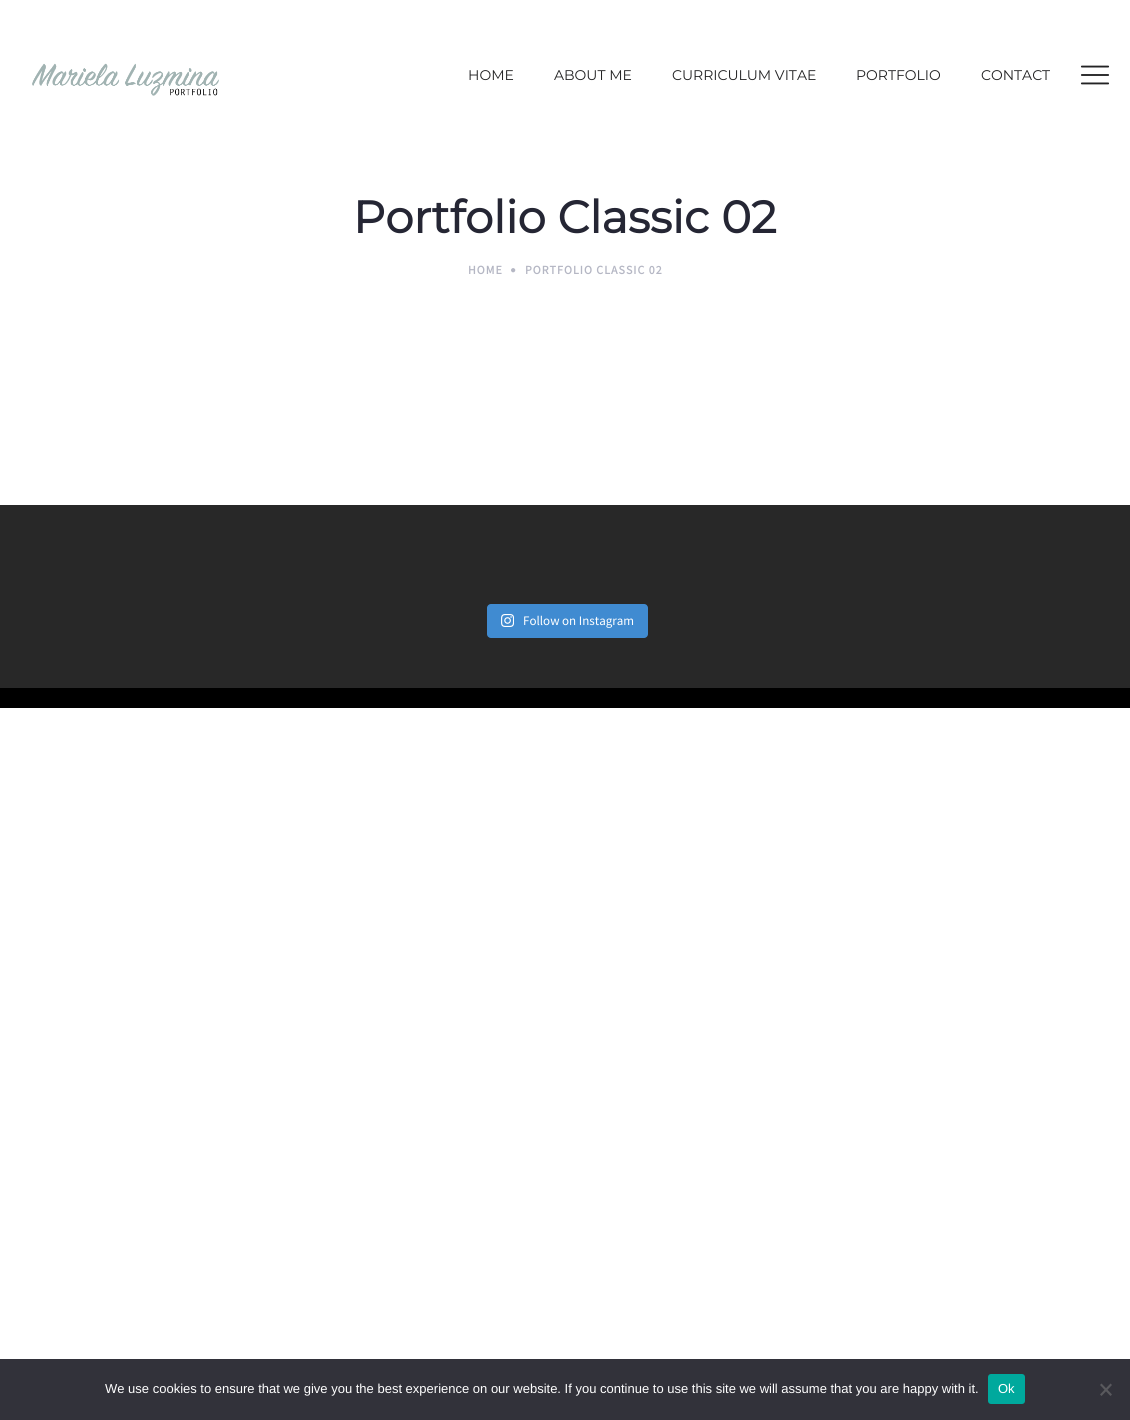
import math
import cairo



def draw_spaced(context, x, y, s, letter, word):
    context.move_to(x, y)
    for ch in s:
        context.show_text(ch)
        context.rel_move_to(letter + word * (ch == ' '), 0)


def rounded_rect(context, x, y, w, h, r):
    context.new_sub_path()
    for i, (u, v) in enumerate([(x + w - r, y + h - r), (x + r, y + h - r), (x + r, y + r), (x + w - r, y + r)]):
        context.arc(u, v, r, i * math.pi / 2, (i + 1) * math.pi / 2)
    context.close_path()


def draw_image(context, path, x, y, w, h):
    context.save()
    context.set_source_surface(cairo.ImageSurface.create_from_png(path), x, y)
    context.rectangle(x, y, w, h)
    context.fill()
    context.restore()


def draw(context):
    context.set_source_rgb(1, 1, 1)
    context.paint()
    draw_image(context, "images/1.png", 32, 63, 187, 33)
    draw_image(context, "images/2.png", 511, 268, 5, 5)
    context.set_source_rgb(40 / 255, 40 / 255, 40 / 255)
    context.rectangle(0, 505, 1130, 183)
    context.fill()
    context.set_source_rgb(64 / 255, 139 / 255, 209 / 255)
    rounded_rect(context, 487, 604, 161, 34, 4)
    context.fill()
    draw_image(context, "images/3.png", 501, 614, 13, 13)
    context.set_source_rgb(0, 0, 0)
    context.rectangle(0, 688, 1130, 20)
    context.fill()
    context.set_source_rgb(50 / 255, 50 / 255, 58 / 255)
    context.rectangle(0, 1359, 1130, 61)
    context.fill()
    context.set_source_rgb(0, 169 / 255, 157 / 255)
    rounded_rect(context, 988, 1374, 37, 30, 3)
    context.fill()
    context.set_source_rgb(89 / 255, 89 / 255, 93 / 255)
    context.new_path()
    context.move_to(1110.5, 1383.5)
    context.line_to(1112, 1385)
    context.line_to(1101.5, 1396)
    context.line_to(1100, 1394.5)
    context.close_path()
    context.fill()
    context.new_path()
    context.move_to(1100, 1385)
    context.line_to(1101.5, 1383.5)
    context.line_to(1112, 1394.5)
    context.line_to(1110.5, 1396)
    context.close_path()
    context.fill()
    context.select_font_face("Montserrat Thin")
    context.set_font_size(14)
    context.set_source_rgb(35 / 255, 35 / 255, 36 / 255)
    context.move_to(468, 80)
    context.show_text("HOME")
    context.move_to(554, 80)
    context.show_text("ABOUT ME")
    context.move_to(672, 80)
    context.show_text("CURRICULUM VITAE")
    context.move_to(856, 80)
    context.show_text("PORTFOLIO")
    context.move_to(981, 80)
    context.show_text("CONTACT")
    context.select_font_face("optima")
    context.set_font_size(30)
    context.move_to(1080, 90)
    context.show_text("a")
    context.select_font_face("Montserrat", cairo.FontSlant.NORMAL, cairo.FontWeight.BOLD)
    context.set_font_size(45)
    context.set_source_rgb(37 / 255, 38 / 255, 52 / 255)
    context.move_to(353, 233)
    context.show_text("Portfolio Classic 02")
    context.select_font_face("Source Sans Pro", cairo.FontSlant.NORMAL, cairo.FontWeight.BOLD)
    context.set_font_size(12)
    context.set_source_rgb(181 / 255, 183 / 255, 196 / 255)
    draw_spaced(context, 468, 274, "HOME", 1, 0)
    draw_spaced(context, 525, 274, "PORTFOLIO CLASSIC 02", 1, 0)
    context.select_font_face("Source Sans Pro")
    context.set_font_size(13)
    context.set_source_rgb(1, 1, 1)
    context.move_to(523, 625)
    context.show_text("Follow on Instagram")
    context.select_font_face("Liberation Sans")
    context.move_to(105, 1393)
    context.show_text("We use cookies to ensure that we give you the best experience on our website. If you continue to use this site we will assume that you are happy with it.")
    context.move_to(998, 1393)
    context.show_text("Ok")


surface = cairo.ImageSurface(cairo.Format.RGB24, 1130, 1420)
context = cairo.Context(surface)
options = cairo.FontOptions()
options.set_hint_metrics(cairo.HintMetrics.OFF)
options.set_hint_style(cairo.HintStyle.NONE)
context.set_font_options(options)
context.set_miter_limit(4)
draw(context)
surface.write_to_png("out.png")
